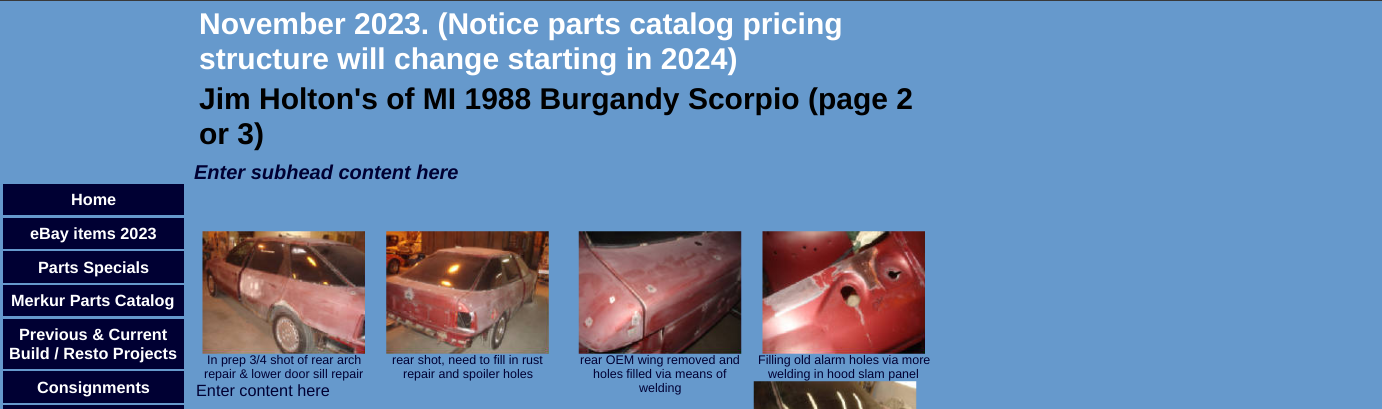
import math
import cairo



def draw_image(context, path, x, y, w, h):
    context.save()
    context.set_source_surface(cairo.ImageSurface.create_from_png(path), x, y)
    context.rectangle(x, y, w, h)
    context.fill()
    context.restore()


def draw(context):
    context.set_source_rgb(102 / 255, 153 / 255, 204 / 255)
    context.paint()
    context.set_source_rgb(57 / 255, 57 / 255, 57 / 255)
    context.rectangle(0, 0, 1382, 1)
    context.fill()
    context.set_source_rgb(0, 0, 51 / 255)
    context.rectangle(3, 184, 181, 31)
    context.fill()
    context.rectangle(3, 218, 181, 31)
    context.fill()
    context.rectangle(3, 251, 181, 32)
    context.fill()
    context.rectangle(3, 285, 181, 31)
    context.fill()
    context.rectangle(3, 319, 181, 50)
    context.fill()
    context.rectangle(3, 371, 181, 32)
    context.fill()
    context.rectangle(3, 405, 181, 4)
    context.fill()
    draw_image(context, "images/1.png", 202, 231, 163, 123)
    draw_image(context, "images/2.png", 386, 231, 163, 123)
    draw_image(context, "images/3.png", 578, 231, 164, 123)
    draw_image(context, "images/4.png", 762, 231, 163, 123)
    draw_image(context, "images/5.png", 753, 381, 164, 28)
    context.select_font_face("Liberation Sans", cairo.FontSlant.NORMAL, cairo.FontWeight.BOLD)
    context.set_font_size(30)
    context.set_source_rgb(1, 1, 1)
    context.move_to(199, 34)
    context.show_text("November 2023. (Notice parts catalog pricing")
    context.move_to(199, 69)
    context.show_text("structure will change starting in 2024)")
    context.set_source_rgb(0, 0, 0)
    context.move_to(199, 109)
    context.show_text("Jim Holton's of MI 1988 Burgandy Scorpio (page 2")
    context.move_to(199, 144)
    context.show_text("or 3)")
    context.set_font_size(16.25)
    context.set_source_rgb(1, 1, 1)
    context.move_to(71, 205)
    context.show_text("Home")
    context.move_to(30, 239)
    context.show_text("eBay items 2023")
    context.move_to(38, 273)
    context.show_text("Parts Specials")
    context.move_to(11, 306)
    context.show_text("Merkur Parts Catalog")
    context.move_to(19, 340)
    context.show_text("Previous & Current")
    context.move_to(9, 359)
    context.show_text("Build / Resto Projects")
    context.move_to(37, 393)
    context.show_text("Consignments")
    context.select_font_face("Liberation Sans", cairo.FontSlant.ITALIC, cairo.FontWeight.BOLD)
    context.set_font_size(20)
    context.set_source_rgb(0, 0, 51 / 255)
    context.move_to(194, 179)
    context.show_text("Enter subhead content here")
    context.select_font_face("Liberation Sans")
    context.set_font_size(12.5)
    context.move_to(207, 364)
    context.show_text("In prep 3/4 shot of rear arch")
    context.move_to(204, 378)
    context.show_text("repair & lower door sill repair")
    context.move_to(392, 364)
    context.show_text("rear shot, need to fill in rust")
    context.move_to(403, 378)
    context.show_text("repair and spoiler holes")
    context.set_font_size(16.25)
    context.move_to(196, 396)
    context.show_text("Enter content here")
    context.set_font_size(12.5)
    context.move_to(580, 364)
    context.show_text("rear OEM wing removed and")
    context.move_to(593, 378)
    context.show_text("holes filled via means of")
    context.move_to(639, 392)
    context.show_text("welding")
    context.move_to(758, 364)
    context.show_text("Filling old alarm holes via more")
    context.move_to(768, 378)
    context.show_text("welding in hood slam panel")


surface = cairo.ImageSurface(cairo.Format.RGB24, 1382, 409)
context = cairo.Context(surface)
options = cairo.FontOptions()
options.set_hint_metrics(cairo.HintMetrics.OFF)
options.set_hint_style(cairo.HintStyle.NONE)
context.set_font_options(options)
context.set_miter_limit(4)
draw(context)
surface.write_to_png("out.png")
